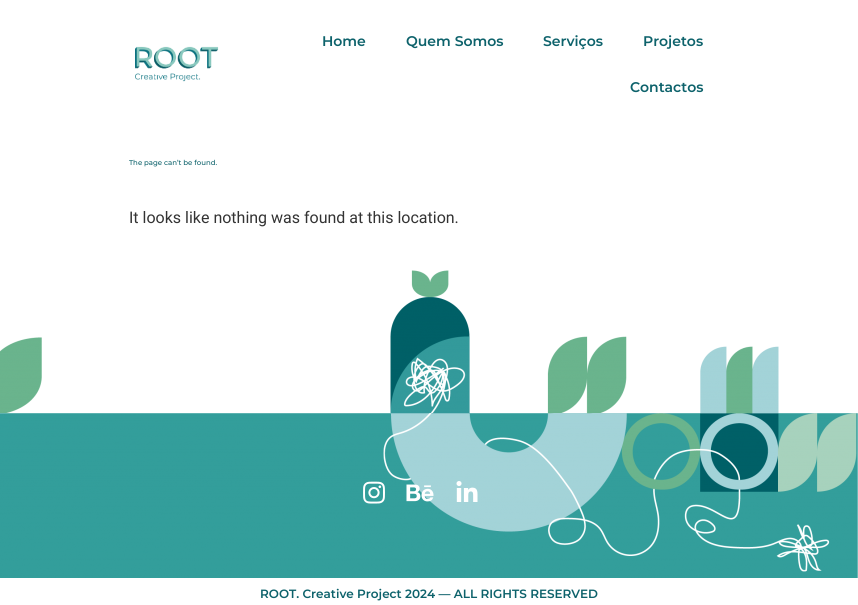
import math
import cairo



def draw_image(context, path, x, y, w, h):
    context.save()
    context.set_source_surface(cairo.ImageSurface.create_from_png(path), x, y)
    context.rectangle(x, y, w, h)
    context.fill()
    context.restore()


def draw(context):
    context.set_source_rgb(1, 1, 1)
    context.paint()
    draw_image(context, "images/1.png", 135, 46, 84, 36)
    draw_image(context, "images/2.png", 0, 270, 779, 143)
    draw_image(context, "images/3.png", 0, 413, 858, 165)
    draw_image(context, "images/4.png", 363, 481, 22, 23)
    draw_image(context, "images/5.png", 406, 484, 28, 18)
    draw_image(context, "images/6.png", 456, 481, 22, 21)
    context.select_font_face("Montserrat SemiBold")
    context.set_font_size(14)
    context.set_source_rgb(13 / 255, 98 / 255, 107 / 255)
    context.move_to(322, 46)
    context.show_text("Home")
    context.move_to(406, 46)
    context.show_text("Quem Somos")
    context.move_to(543, 46)
    context.show_text("Serviços")
    context.move_to(643, 46)
    context.show_text("Projetos")
    context.move_to(630, 92)
    context.show_text("Contactos")
    context.select_font_face("Montserrat Medium")
    context.set_font_size(7)
    context.move_to(129, 165)
    context.show_text("The page can’t be found.")
    context.select_font_face("Roboto")
    context.set_font_size(16)
    context.set_source_rgb(51 / 255, 51 / 255, 51 / 255)
    context.move_to(129, 223)
    context.show_text("It looks like nothing was found at this location.")
    context.select_font_face("Montserrat SemiBold")
    context.set_font_size(12)
    context.set_source_rgb(13 / 255, 98 / 255, 107 / 255)
    context.move_to(260, 598)
    context.show_text("ROOT. Creative Project 2024 — ALL RIGHTS RESERVED")


surface = cairo.ImageSurface(cairo.Format.RGB24, 858, 605)
context = cairo.Context(surface)
options = cairo.FontOptions()
options.set_hint_metrics(cairo.HintMetrics.OFF)
options.set_hint_style(cairo.HintStyle.NONE)
context.set_font_options(options)
context.set_miter_limit(4)
draw(context)
surface.write_to_png("out.png")
